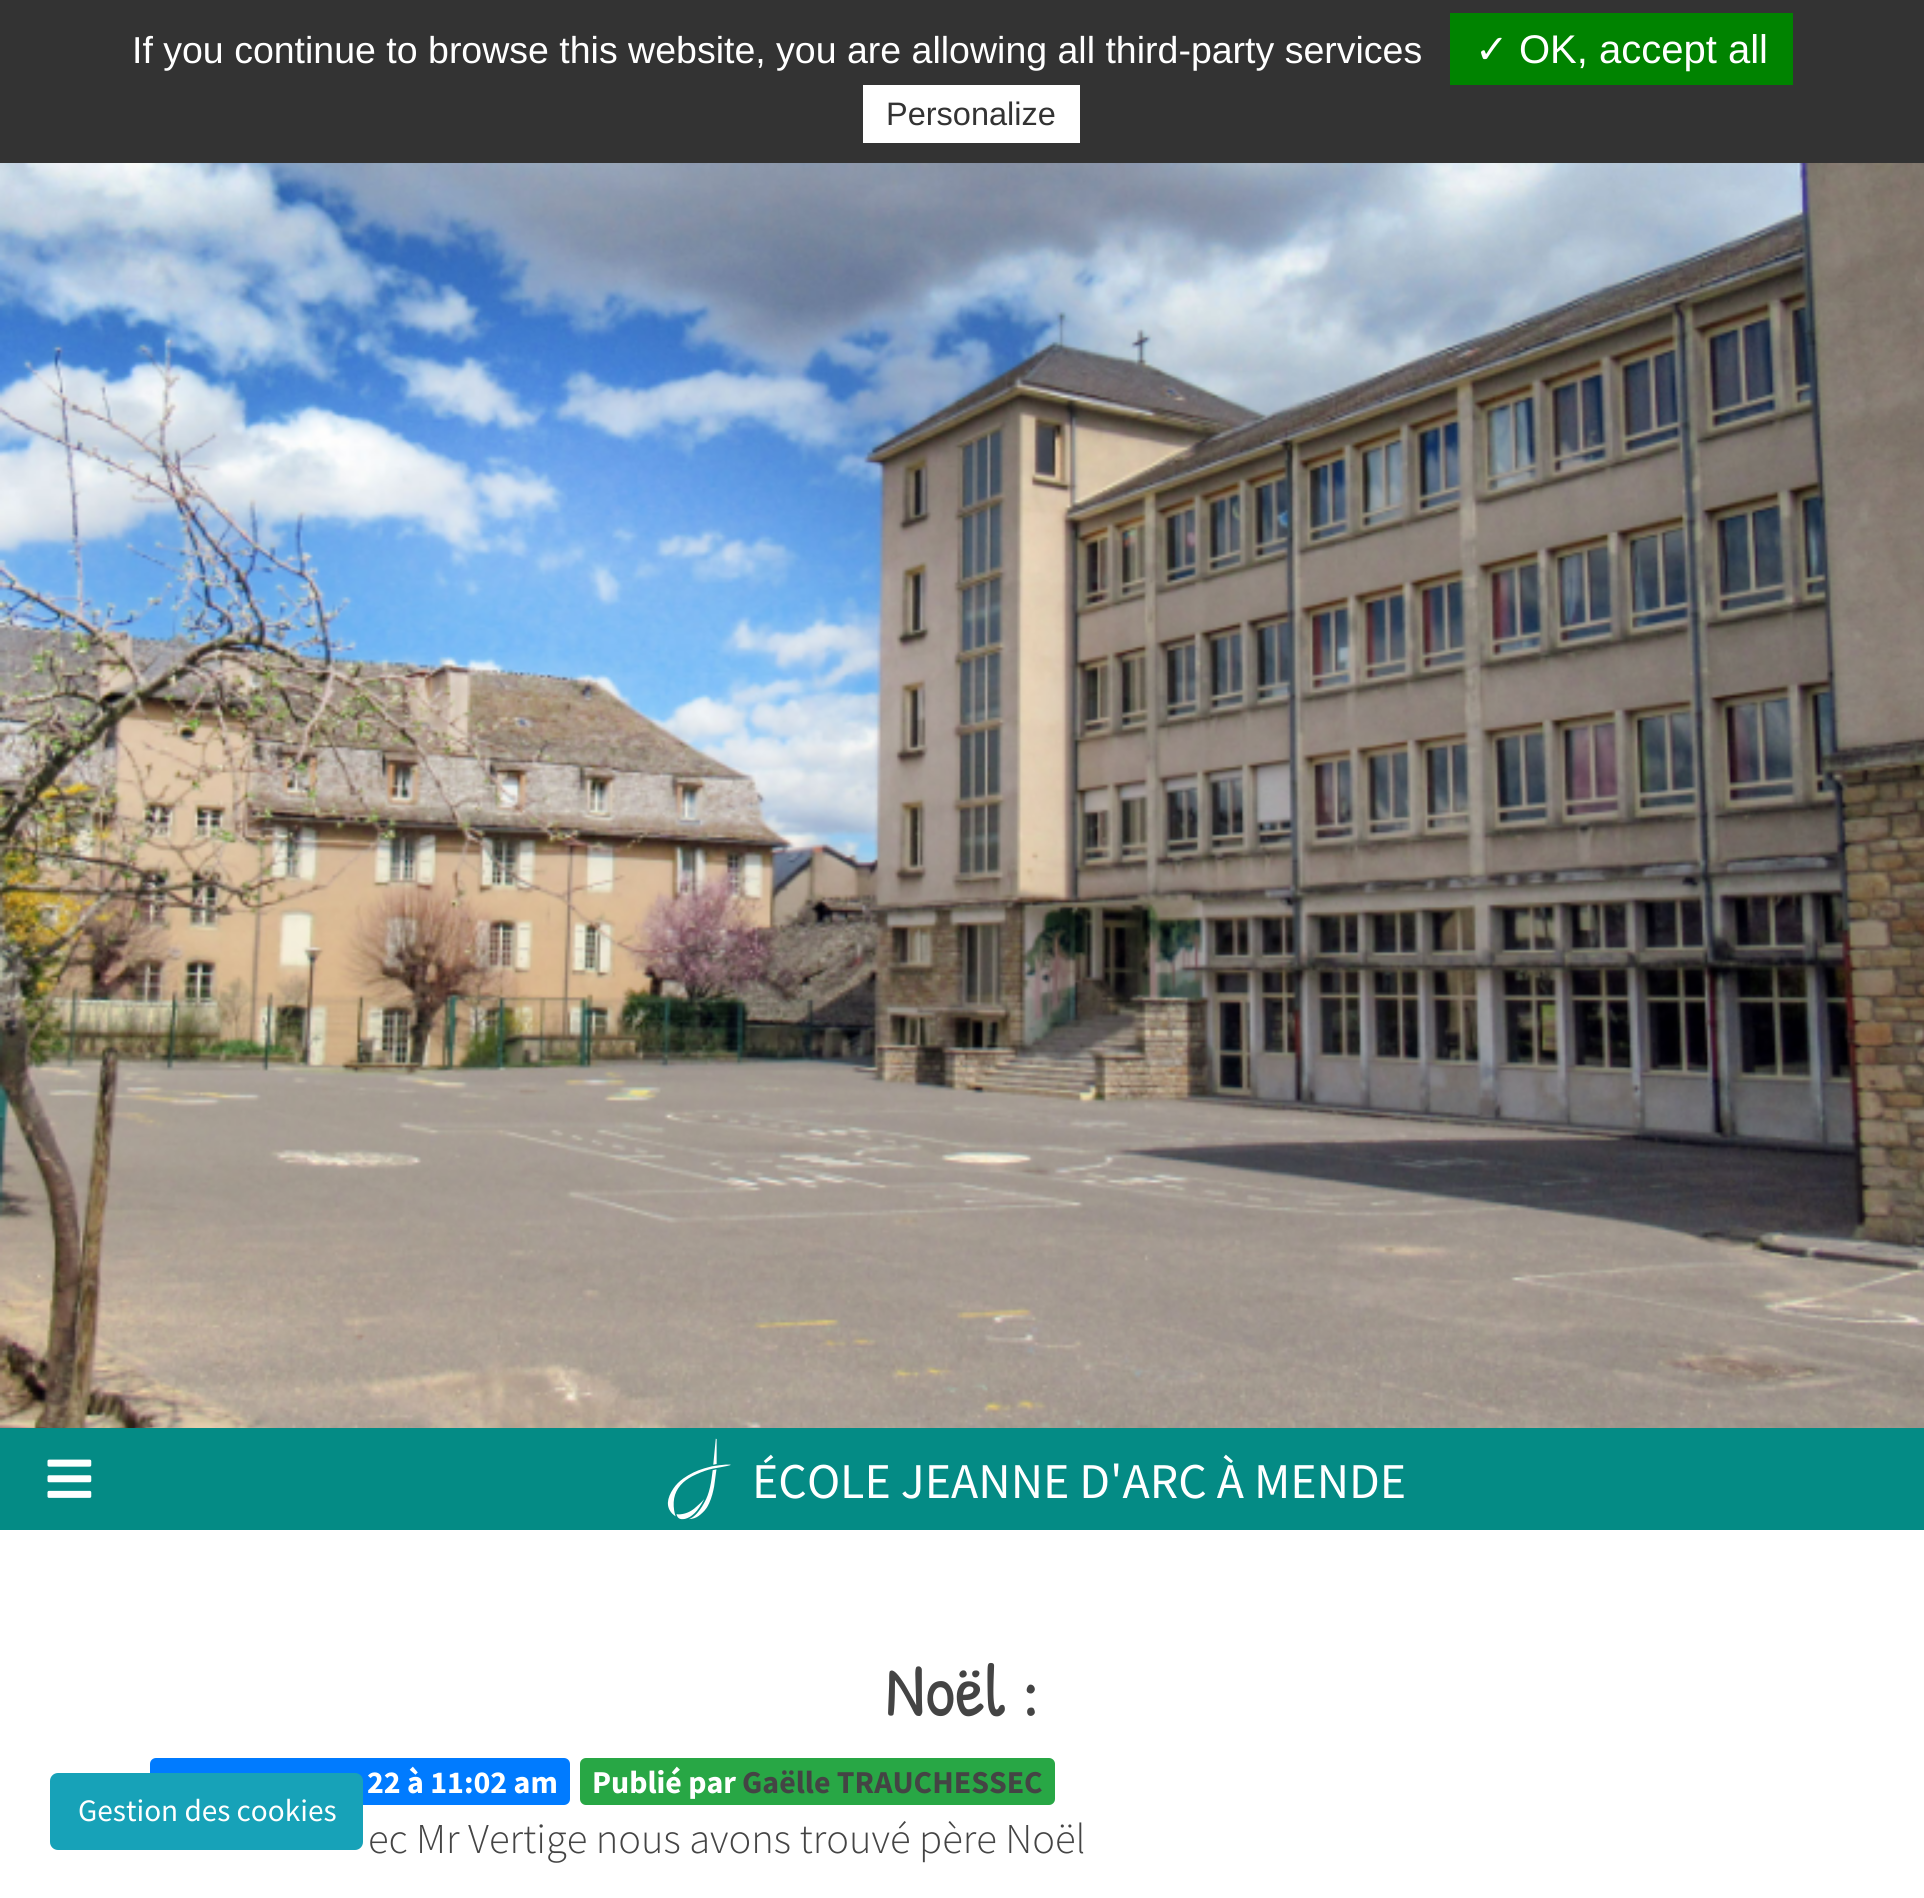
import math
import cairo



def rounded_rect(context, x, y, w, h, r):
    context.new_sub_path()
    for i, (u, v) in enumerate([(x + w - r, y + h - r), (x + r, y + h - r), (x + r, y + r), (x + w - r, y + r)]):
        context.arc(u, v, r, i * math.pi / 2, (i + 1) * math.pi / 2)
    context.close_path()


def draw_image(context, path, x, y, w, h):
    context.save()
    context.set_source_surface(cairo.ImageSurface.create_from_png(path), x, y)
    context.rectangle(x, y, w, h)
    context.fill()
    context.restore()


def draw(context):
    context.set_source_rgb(1, 1, 1)
    context.paint()
    context.set_source_rgb(51 / 255, 51 / 255, 51 / 255)
    context.rectangle(0, 0, 1924, 163)
    context.fill()
    context.set_source_rgb(0, 131 / 255, 0)
    context.rectangle(1450, 13, 343, 72)
    context.fill()
    context.set_source_rgb(1, 1, 1)
    context.rectangle(863, 85, 217, 58)
    context.fill()
    draw_image(context, "images/1.png", 0, 163, 1924, 1265)
    context.set_source_rgb(4 / 255, 139 / 255, 133 / 255)
    context.rectangle(0, 1428, 1924, 102)
    context.fill()
    draw_image(context, "images/2.png", 47, 1459, 45, 39)
    draw_image(context, "images/3.png", 667, 1438, 64, 82)
    context.set_source_rgb(0, 123 / 255, 1)
    rounded_rect(context, 150, 1758, 420, 47, 6)
    context.fill()
    context.set_source_rgb(23 / 255, 162 / 255, 184 / 255)
    rounded_rect(context, 51.5, 1774.5, 310, 74, 6.5)
    context.fill_preserve()
    context.set_line_width(3)
    context.stroke()
    context.set_source_rgb(40 / 255, 167 / 255, 69 / 255)
    rounded_rect(context, 580, 1758, 475, 47, 6)
    context.fill()
    context.select_font_face("Liberation Sans")
    context.set_font_size(37.5)
    context.set_source_rgb(1, 1, 1)
    context.move_to(132, 63)
    context.show_text("If you continue to browse this website, you are allowing all third-party services")
    context.select_font_face("DejaVu Sans")
    context.set_font_size(40)
    context.move_to(1475, 63)
    context.show_text("✓")
    context.select_font_face("Liberation Sans")
    context.move_to(1519, 63)
    context.show_text("OK, accept all")
    context.set_font_size(32.5)
    context.set_source_rgb(51 / 255, 51 / 255, 51 / 255)
    context.move_to(886, 125)
    context.show_text("Personalize")
    context.select_font_face("Source Sans Pro")
    context.set_font_size(50)
    context.set_source_rgb(1, 1, 1)
    context.move_to(752, 1498)
    context.show_text("ÉCOLE JEANNE D'ARC À MENDE")
    context.set_font_size(31.25)
    context.move_to(78, 1821)
    context.show_text("Gestion des cookies")
    context.select_font_face("Patrick Hand")
    context.set_font_size(75)
    context.set_source_rgb(68 / 255, 68 / 255, 68 / 255)
    context.move_to(885, 1716)
    context.show_text("Noël :")
    context.select_font_face("Source Sans Pro", cairo.FontSlant.NORMAL, cairo.FontWeight.BOLD)
    context.set_font_size(31.9)
    context.set_source_rgb(1, 1, 1)
    context.move_to(367, 1793)
    context.show_text("22 à 11:02 am")
    context.move_to(592, 1793)
    context.show_text("Publié par")
    context.set_source_rgb(68 / 255, 68 / 255, 68 / 255)
    context.move_to(742, 1793)
    context.show_text("Gaëlle TRAUCHESSEC")
    context.select_font_face("Source Sans Pro Light")
    context.set_font_size(42.5)
    context.move_to(368, 1853)
    context.show_text("ec Mr Vertige nous avons trouvé père Noël")


surface = cairo.ImageSurface(cairo.Format.RGB24, 1924, 1898)
context = cairo.Context(surface)
options = cairo.FontOptions()
options.set_hint_metrics(cairo.HintMetrics.OFF)
options.set_hint_style(cairo.HintStyle.NONE)
context.set_font_options(options)
context.set_miter_limit(4)
draw(context)
surface.write_to_png("out.png")
